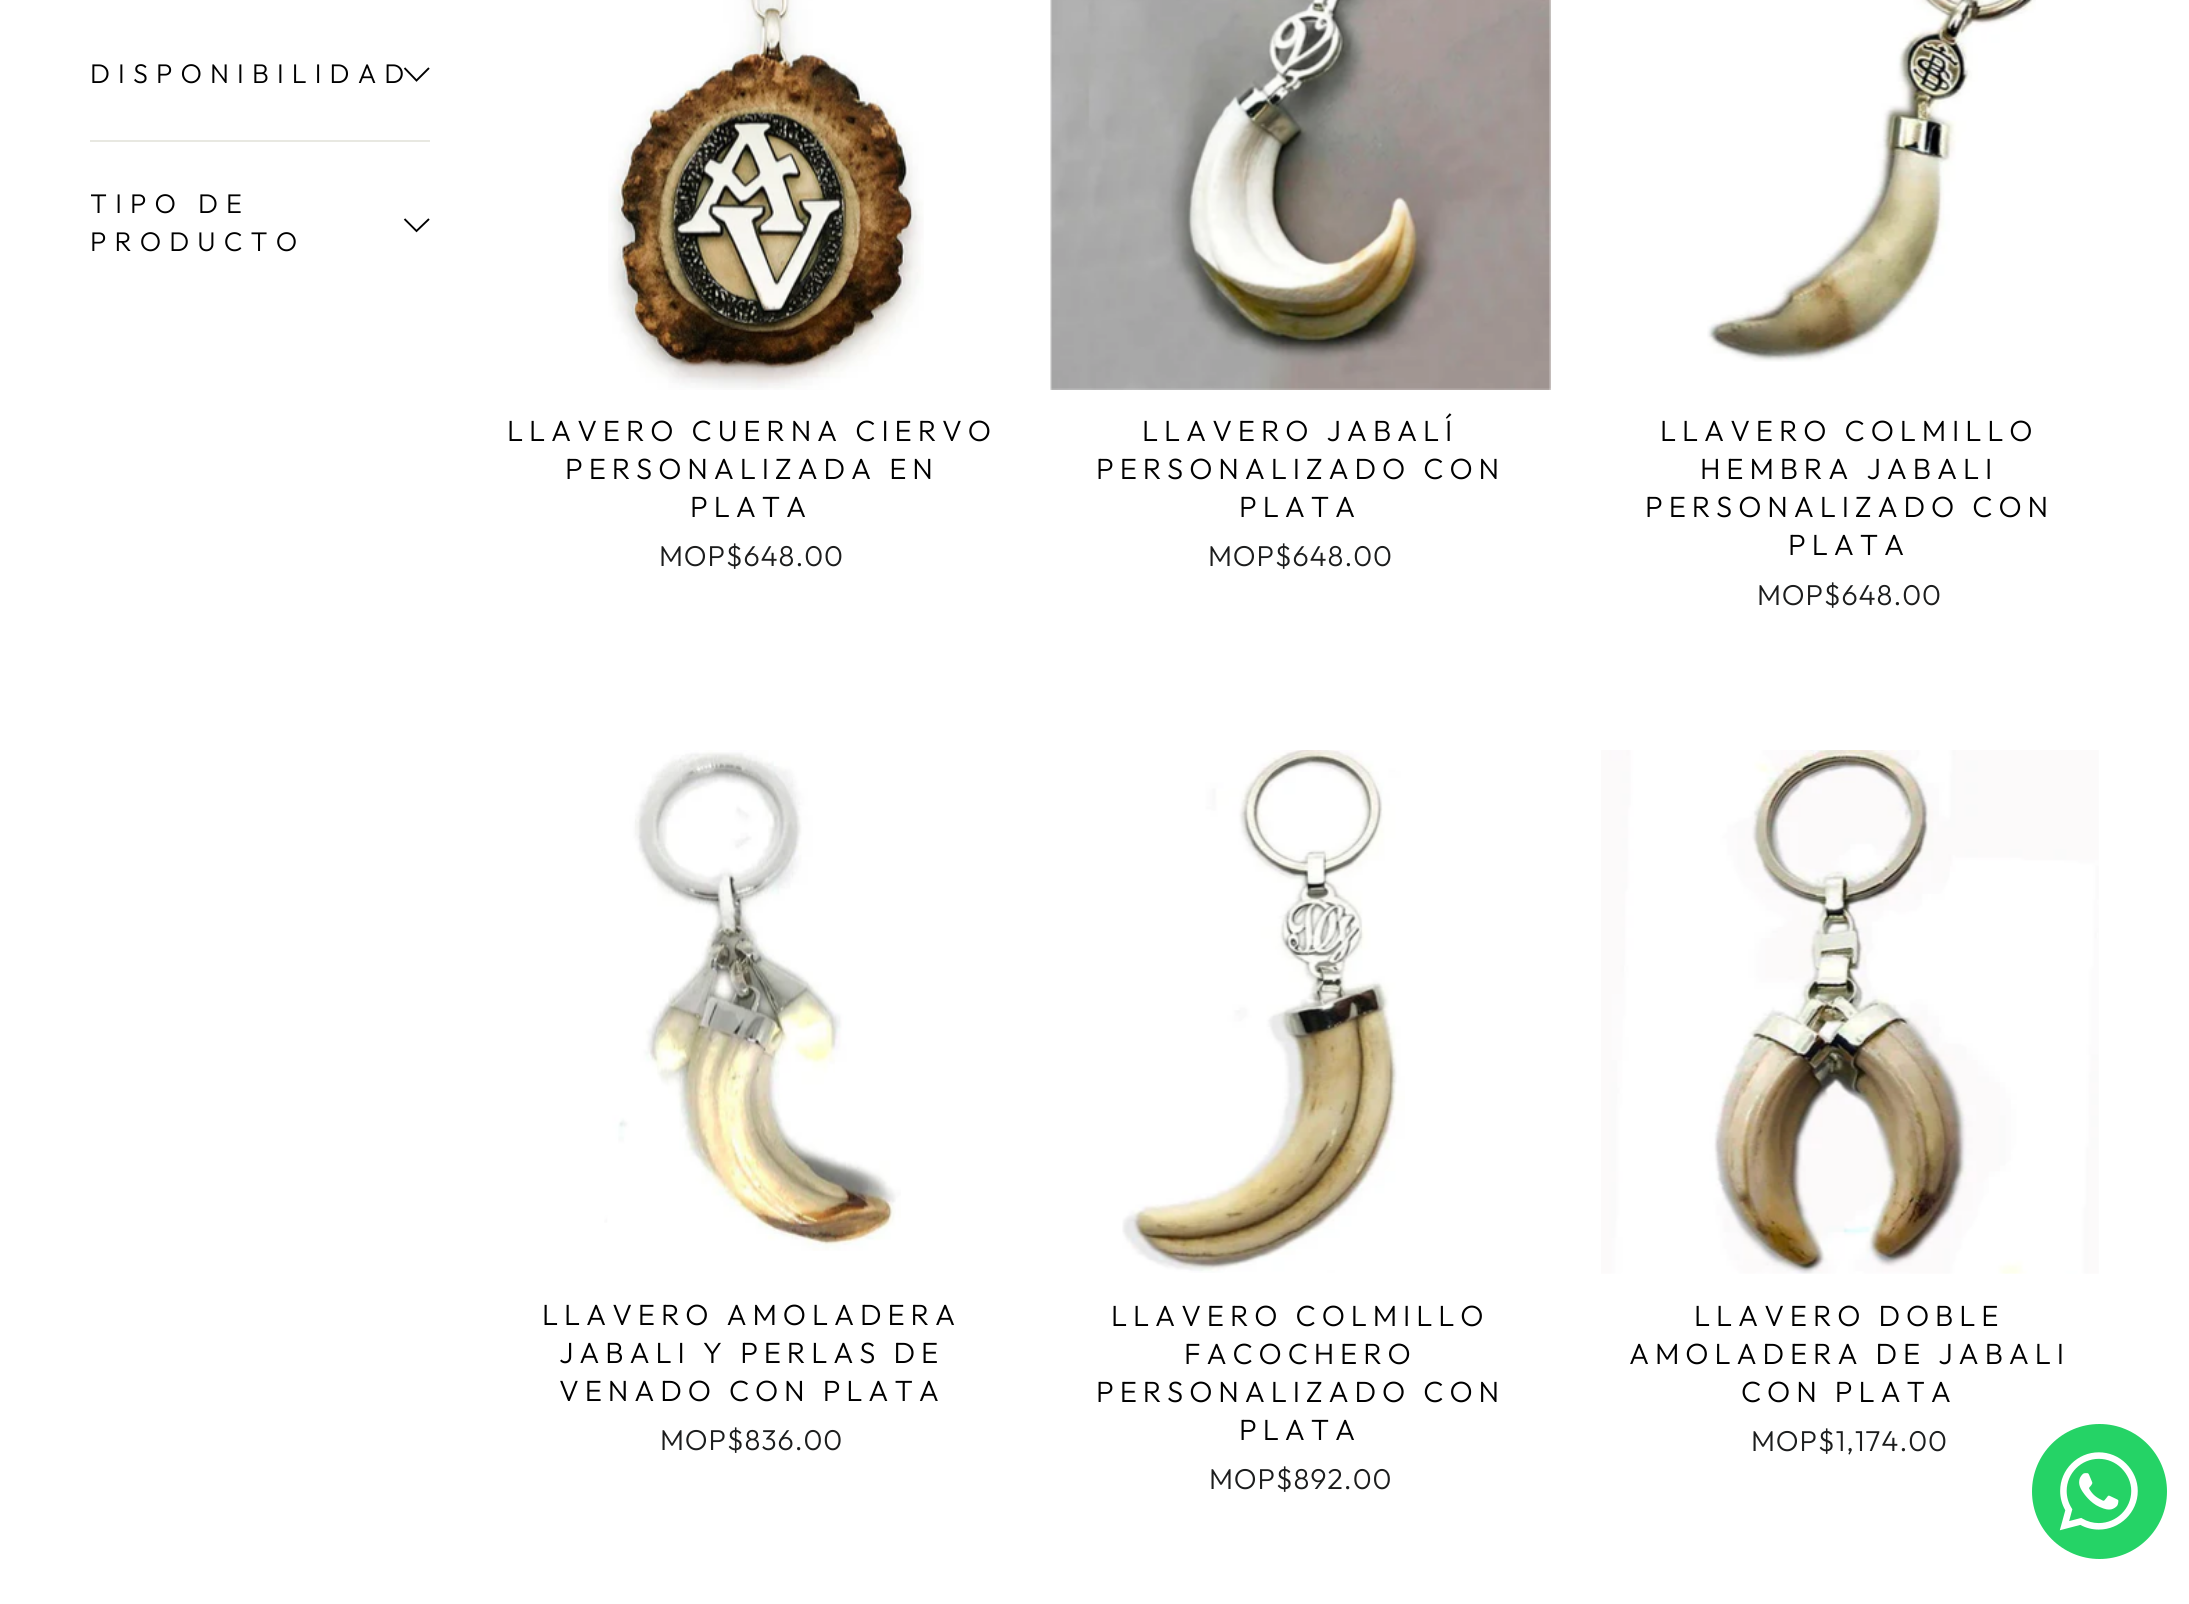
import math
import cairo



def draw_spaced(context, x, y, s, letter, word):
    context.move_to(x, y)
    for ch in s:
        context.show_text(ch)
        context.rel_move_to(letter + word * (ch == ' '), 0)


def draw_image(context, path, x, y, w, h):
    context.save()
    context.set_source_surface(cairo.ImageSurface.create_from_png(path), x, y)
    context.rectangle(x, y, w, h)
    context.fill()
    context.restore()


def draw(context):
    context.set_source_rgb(1, 1, 1)
    context.paint()
    context.new_path()
    context.move_to(404.5, 68)
    context.line_to(416.5, 80.5)
    context.line_to(429, 68)
    context.set_source_rgb(0, 0, 0)
    context.set_line_width(1.9)
    context.stroke()
    context.set_source_rgb(232 / 255, 232 / 255, 225 / 255)
    context.rectangle(90, 140, 340, 2)
    context.fill()
    context.new_path()
    context.move_to(404.5, 219)
    context.line_to(416.5, 231)
    context.line_to(429, 219)
    context.set_source_rgb(0, 0, 0)
    context.stroke()
    draw_image(context, "images/1.png", 608, 0, 316, 390)
    draw_image(context, "images/2.png", 1050, 0, 501, 390)
    draw_image(context, "images/3.png", 1707, 0, 329, 362)
    draw_image(context, "images/4.png", 604, 750, 297, 501)
    draw_image(context, "images/5.png", 1122, 750, 283, 523)
    draw_image(context, "images/6.png", 1601, 750, 498, 524)
    context.set_source_rgb(37 / 255, 211 / 255, 102 / 255)
    context.arc(2099.5, 1491.5, 67.5, 0, 2 * math.pi)
    context.fill()
    draw_image(context, "images/7.png", 2059, 1452, 79, 79)
    context.select_font_face("Outfit Light")
    context.set_font_size(27)
    context.set_source_rgb(0, 0, 0)
    draw_spaced(context, 90, 83, "DISPONIBILIDAD", 8.1, 0)
    draw_spaced(context, 90, 213, "TIPO DE", 8.1, 0)
    draw_spaced(context, 90, 251, "PRODUCTO", 8.1, 0)
    context.set_font_size(29.25)
    draw_spaced(context, 507, 441, "LLAVERO CUERNA CIERVO", 5.85, 0)
    draw_spaced(context, 565, 479, "PERSONALIZADA EN", 5.85, 0)
    draw_spaced(context, 690, 517, "PLATA", 5.85, 0)
    context.set_font_size(28.75)
    context.set_source_rgb(28 / 255, 29 / 255, 29 / 255)
    draw_spaced(context, 659, 566, "MOP$648.00", 0.8, 0)
    context.set_font_size(29.25)
    context.set_source_rgb(0, 0, 0)
    draw_spaced(context, 1142, 441, "LLAVERO JABALÍ", 5.85, 0)
    draw_spaced(context, 1096, 479, "PERSONALIZADO CON", 5.85, 0)
    draw_spaced(context, 1239, 517, "PLATA", 5.85, 0)
    context.set_font_size(28.75)
    context.set_source_rgb(28 / 255, 29 / 255, 29 / 255)
    draw_spaced(context, 1208, 566, "MOP$648.00", 0.8, 0)
    context.set_font_size(29.25)
    context.set_source_rgb(0, 0, 0)
    draw_spaced(context, 1660, 441, "LLAVERO COLMILLO", 5.85, 0)
    draw_spaced(context, 1700, 479, "HEMBRA JABALI", 5.85, 0)
    draw_spaced(context, 1645, 517, "PERSONALIZADO CON", 5.85, 0)
    draw_spaced(context, 1788, 555, "PLATA", 5.85, 0)
    context.set_font_size(28.75)
    context.set_source_rgb(28 / 255, 29 / 255, 29 / 255)
    draw_spaced(context, 1757, 605, "MOP$648.00", 0.8, 0)
    context.set_font_size(29.25)
    context.set_source_rgb(0, 0, 0)
    draw_spaced(context, 542, 1325, "LLAVERO AMOLADERA", 5.85, 0)
    draw_spaced(context, 559, 1363, "JABALI Y PERLAS DE", 5.85, 0)
    draw_spaced(context, 559, 1401, "VENADO CON PLATA", 5.85, 0)
    context.set_font_size(28.75)
    context.set_source_rgb(28 / 255, 29 / 255, 29 / 255)
    draw_spaced(context, 660, 1450, "MOP$836.00", 0.8, 0)
    context.set_font_size(29.25)
    context.set_source_rgb(0, 0, 0)
    draw_spaced(context, 1111, 1326, "LLAVERO COLMILLO", 5.85, 0)
    draw_spaced(context, 1184, 1364, "FACOCHERO", 5.85, 0)
    draw_spaced(context, 1096, 1402, "PERSONALIZADO CON", 5.85, 0)
    draw_spaced(context, 1239, 1440, "PLATA", 5.85, 0)
    context.set_font_size(28.75)
    context.set_source_rgb(28 / 255, 29 / 255, 29 / 255)
    draw_spaced(context, 1209, 1489, "MOP$892.00", 0.8, 0)
    context.set_font_size(29.25)
    context.set_source_rgb(0, 0, 0)
    draw_spaced(context, 1694, 1326, "LLAVERO DOBLE", 5.85, 0)
    draw_spaced(context, 1629, 1364, "AMOLADERA DE JABALI", 5.85, 0)
    draw_spaced(context, 1741, 1402, "CON PLATA", 5.85, 0)
    context.set_font_size(28.75)
    context.set_source_rgb(28 / 255, 29 / 255, 29 / 255)
    draw_spaced(context, 1751, 1451, "MOP$1,174.00", 0.8, 0)


surface = cairo.ImageSurface(cairo.Format.RGB24, 2189, 1604)
context = cairo.Context(surface)
options = cairo.FontOptions()
options.set_hint_metrics(cairo.HintMetrics.OFF)
options.set_hint_style(cairo.HintStyle.NONE)
context.set_font_options(options)
context.set_miter_limit(4)
draw(context)
surface.write_to_png("out.png")
